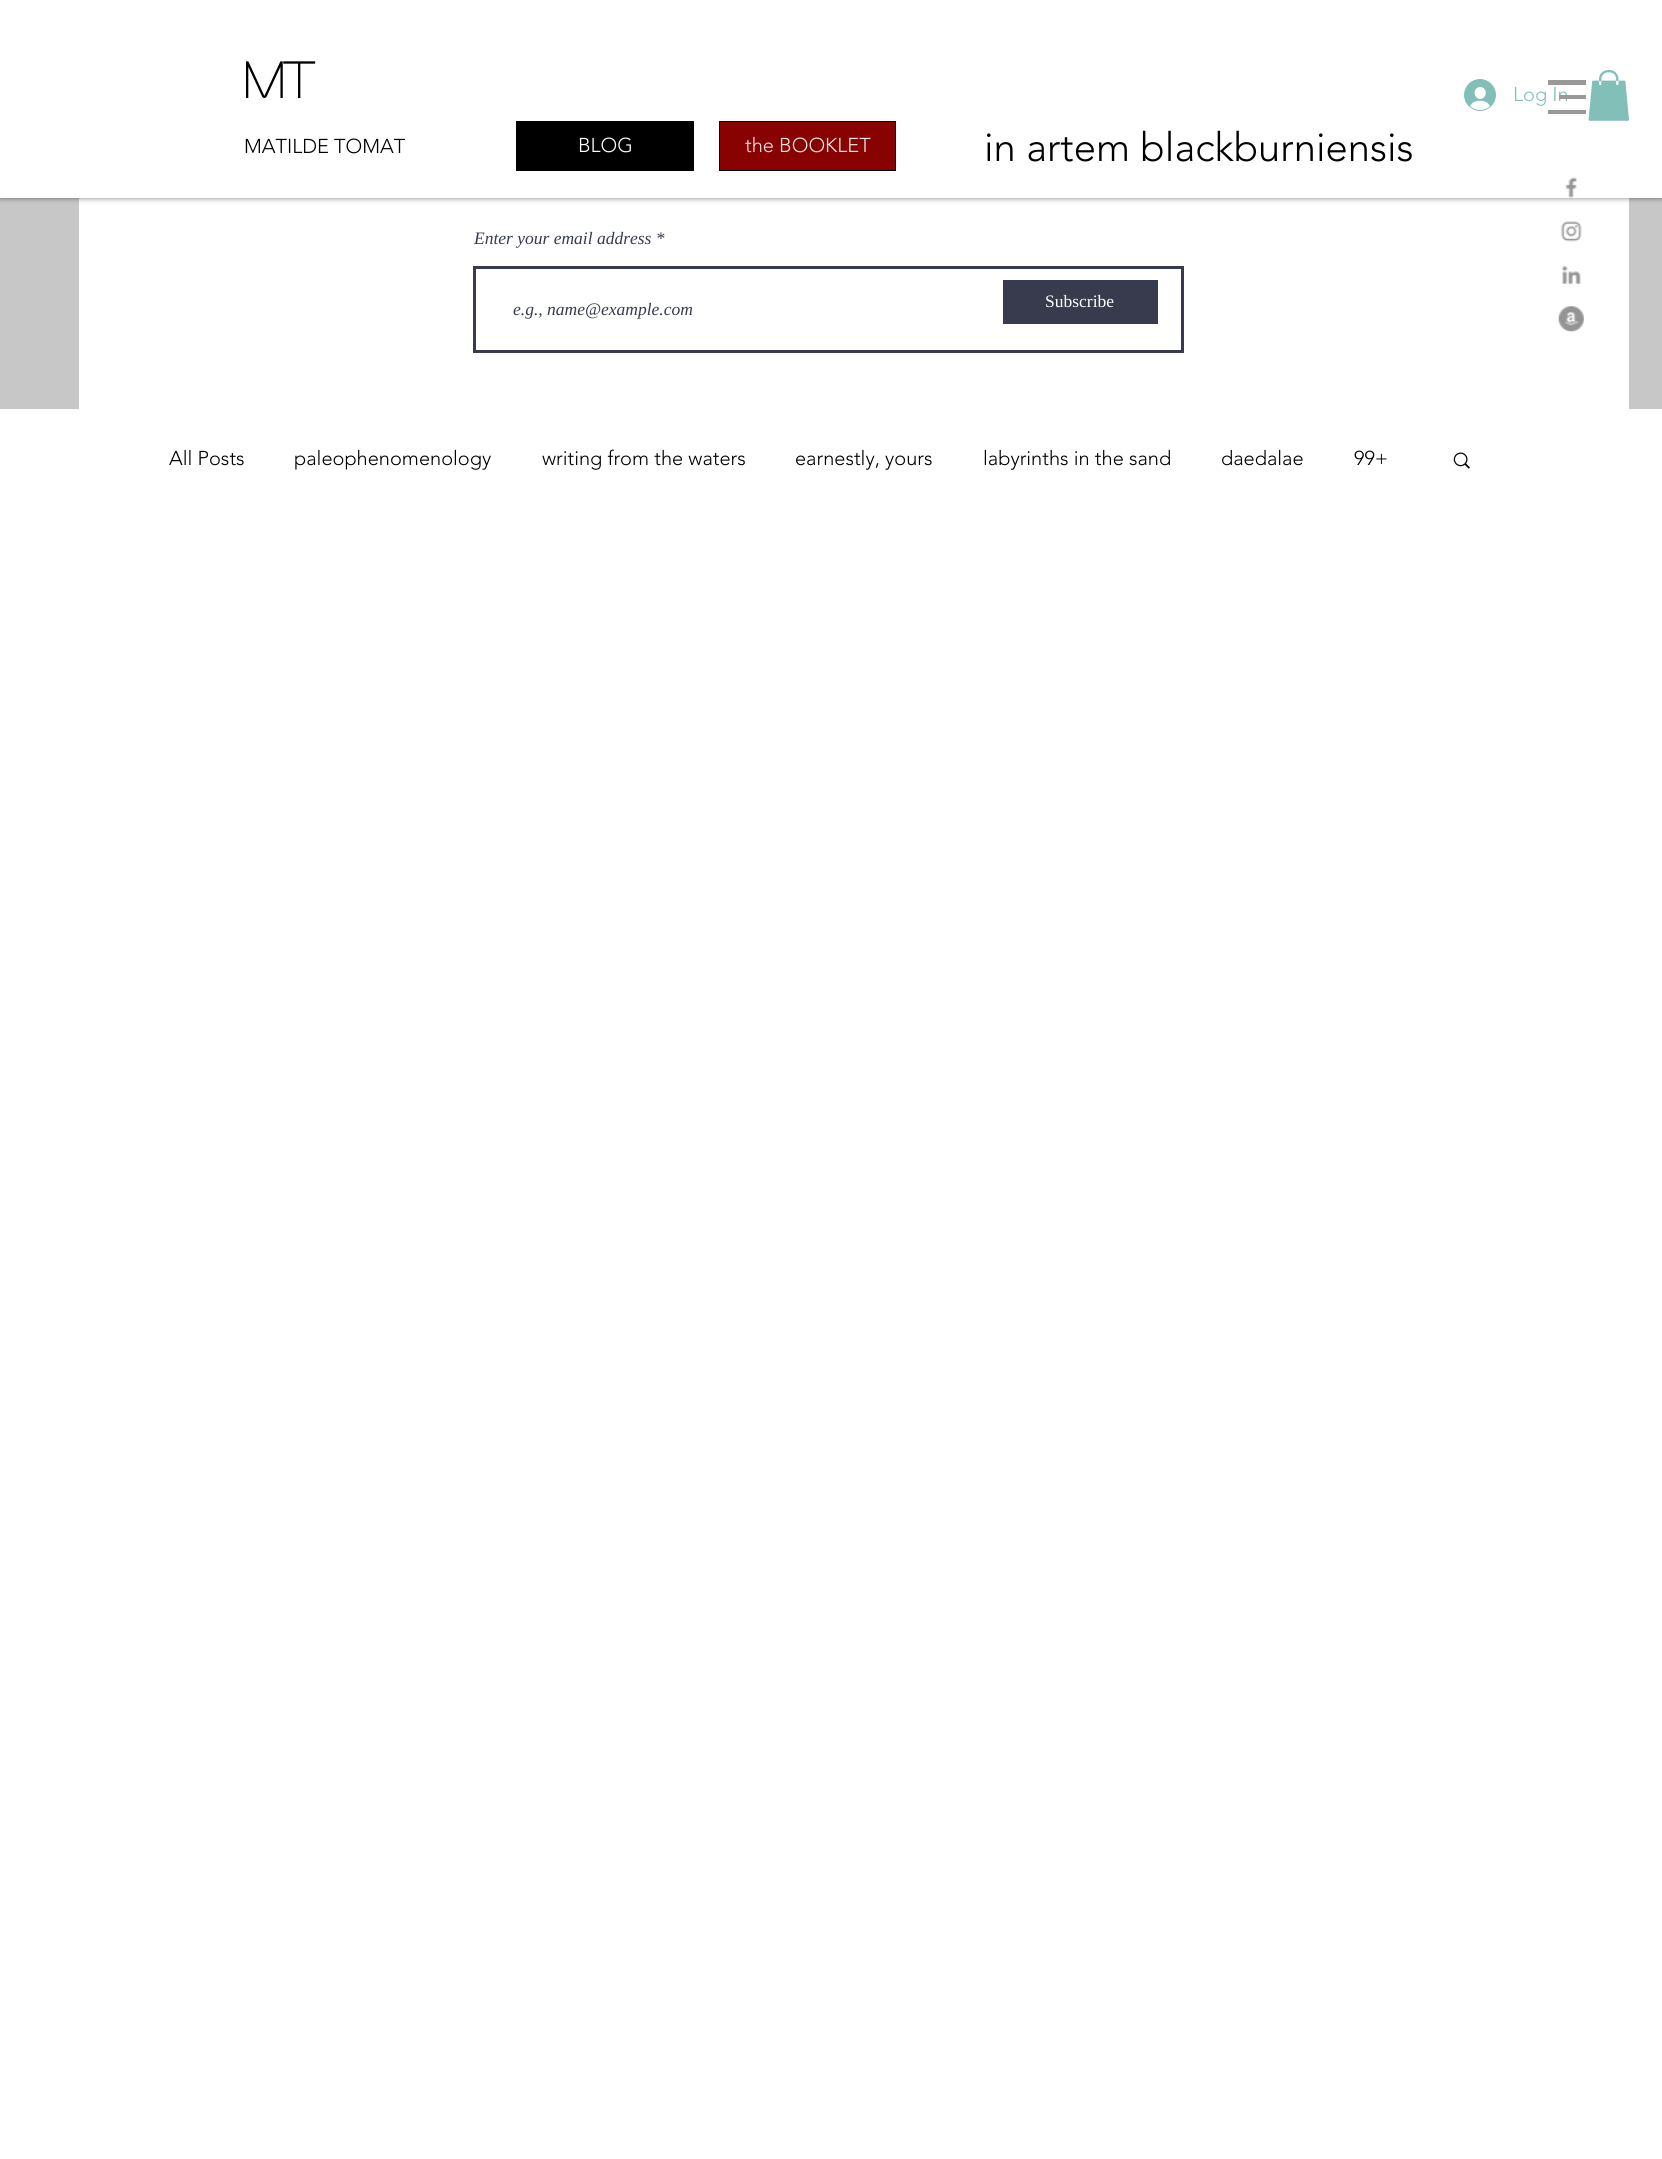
import math
import cairo



def rounded_rect(context, x, y, w, h, r):
    context.new_sub_path()
    for i, (u, v) in enumerate([(x + w - r, y + h - r), (x + r, y + h - r), (x + r, y + r), (x + w - r, y + r)]):
        context.arc(u, v, r, i * math.pi / 2, (i + 1) * math.pi / 2)
    context.close_path()


def draw_shadow(context, x, y, w, h, r, blur, alpha):
    context.push_group_with_content(cairo.Content.ALPHA)
    context.set_operator(cairo.Operator.SOURCE)
    for i in range(15, -16, -2):
        e = blur * i / 6
        if min(w, h) + 2 * e > 0:
            context.set_source_rgba(0, 0, 0, alpha * math.erfc((i - 1) / 8.5) / 2)
            rounded_rect(context, x - e, y - e, w + 2 * e, h + 2 * e, max(0, min(r + e + blur * .6, min(w, h) / 2 + e)))
            context.fill()
    context.mask(context.pop_group())


def draw_image(context, path, x, y, w, h):
    context.save()
    context.set_source_surface(cairo.ImageSurface.create_from_png(path), x, y)
    context.rectangle(x, y, w, h)
    context.fill()
    context.restore()


def draw(context):
    context.set_source_rgb(199 / 255, 199 / 255, 199 / 255)
    context.paint()
    context.set_source_rgb(1, 1, 1)
    context.rectangle(79, 198, 1550, 211)
    context.fill()
    context.set_source_rgb(0, 0, 0)
    draw_shadow(context, 0, 0, 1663, 198, 0, 3, 0.5)
    context.set_source_rgb(1, 1, 1)
    context.rectangle(0, 0, 1662, 198)
    context.fill()
    draw_image(context, "images/1.png", 1464, 79, 32, 32)
    draw_image(context, "images/2.png", 1588, 70, 41, 51)
    context.set_source_rgb(0, 0, 0)
    context.rectangle(516, 121, 178, 50)
    context.fill()
    context.set_source_rgb(137 / 255, 2 / 255, 2 / 255)
    context.rectangle(719.5, 121.5, 176, 49)
    context.fill_preserve()
    context.set_source_rgb(0, 0, 0)
    context.set_line_width(1)
    context.stroke()
    context.rectangle(474.5, 267.5, 708, 84)
    context.set_source_rgb(55 / 255, 59 / 255, 77 / 255)
    context.set_line_width(3)
    context.stroke()
    context.rectangle(1003, 280, 155, 44)
    context.fill()
    context.set_source_rgb(1, 1, 1)
    context.rectangle(0, 409, 1662, 1750)
    context.fill()
    draw_image(context, "images/3.png", 1453, 452, 17, 17)
    context.set_source_rgb(153 / 255, 153 / 255, 151 / 255)
    context.rectangle(1548, 80, 38, 5)
    context.fill()
    context.rectangle(1548, 110, 38, 4)
    context.fill()
    draw_image(context, "images/4.png", 1565, 177, 12, 21)
    draw_image(context, "images/5.png", 1560, 221, 22, 21)
    draw_image(context, "images/6.png", 1561, 266, 20, 18)
    draw_image(context, "images/7.png", 1558, 306, 26, 26)
    context.select_font_face("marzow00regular", cairo.FontSlant.NORMAL, cairo.FontWeight.BOLD)
    context.set_font_size(50)
    context.set_source_rgb(0, 0, 0)
    context.move_to(244, 98)
    context.show_text("MT")
    context.select_font_face("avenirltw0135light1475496 Light")
    context.set_font_size(20)
    context.set_source_rgb(130 / 255, 191 / 255, 184 / 255)
    context.move_to(1513, 101)
    context.show_text("Log In")
    context.set_source_rgb(0, 0, 0)
    context.move_to(244, 153)
    context.show_text("MATILDE TOMAT")
    context.set_source_rgb(1, 1, 1)
    context.move_to(578, 152)
    context.show_text("BLOG")
    context.set_source_rgb(232 / 255, 230 / 255, 230 / 255)
    context.move_to(745, 152)
    context.show_text("the BOOKLET")
    context.set_font_size(40)
    context.set_source_rgb(0, 0, 0)
    context.move_to(984, 161)
    context.show_text("in artem blackburniensis")
    context.select_font_face("Liberation Serif", cairo.FontSlant.ITALIC)
    context.set_font_size(17.5)
    context.set_source_rgb(55 / 255, 59 / 255, 77 / 255)
    context.move_to(474, 244)
    context.show_text("Enter your email address *")
    context.move_to(513, 315)
    context.show_text("e.g., name@example.com")
    context.select_font_face("Liberation Serif")
    context.set_source_rgb(1, 1, 1)
    context.move_to(1045, 307)
    context.show_text("Subscribe")
    context.select_font_face("avenirltw0135light1475496 Light")
    context.set_font_size(20)
    context.set_source_rgb(0, 0, 0)
    context.move_to(169, 465)
    context.show_text("All Posts")
    context.move_to(294, 465)
    context.show_text("paleophenomenology")
    context.move_to(542, 465)
    context.show_text("writing from the waters")
    context.move_to(795, 465)
    context.show_text("earnestly, yours")
    context.move_to(983, 465)
    context.show_text("labyrinths in the sand")
    context.move_to(1221, 465)
    context.show_text("daedalae")
    context.move_to(1354, 465)
    context.show_text("99+")
    context.set_source_rgb(153 / 255, 153 / 255, 151 / 255)
    context.rectangle(1559, 95, 27, 4)
    context.fill()


surface = cairo.ImageSurface(cairo.Format.RGB24, 1662, 2159)
context = cairo.Context(surface)
options = cairo.FontOptions()
options.set_hint_metrics(cairo.HintMetrics.OFF)
options.set_hint_style(cairo.HintStyle.NONE)
context.set_font_options(options)
context.set_miter_limit(4)
draw(context)
surface.write_to_png("out.png")
